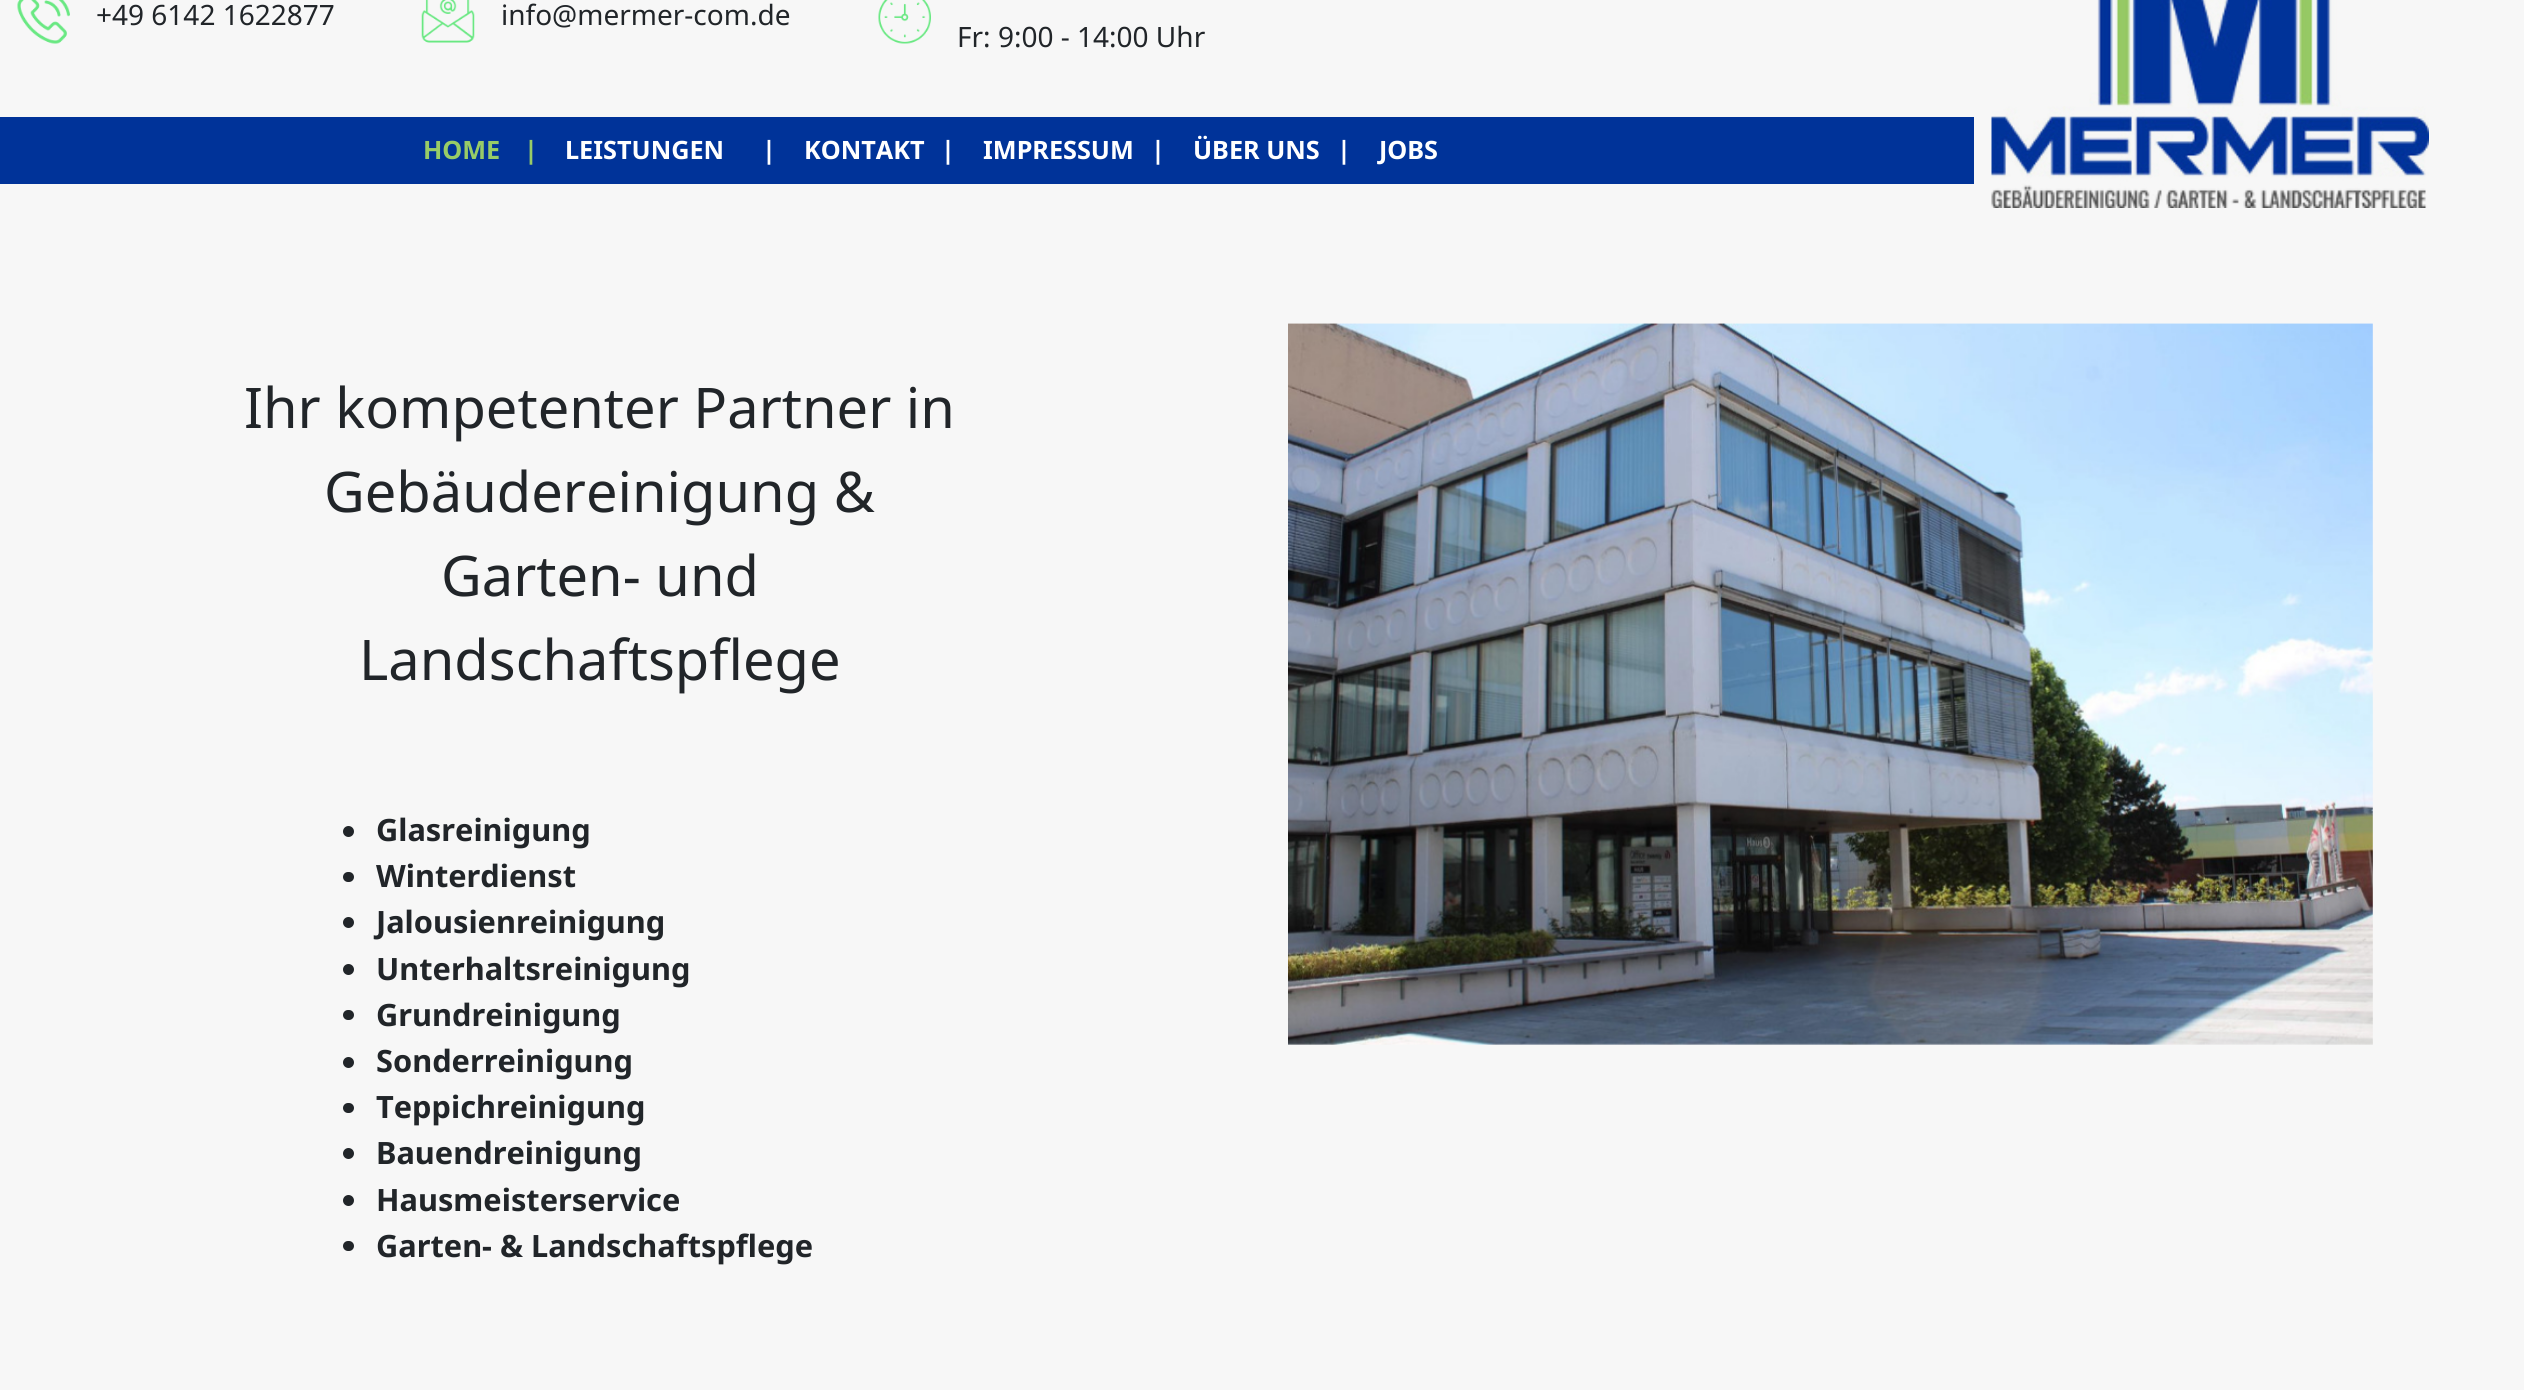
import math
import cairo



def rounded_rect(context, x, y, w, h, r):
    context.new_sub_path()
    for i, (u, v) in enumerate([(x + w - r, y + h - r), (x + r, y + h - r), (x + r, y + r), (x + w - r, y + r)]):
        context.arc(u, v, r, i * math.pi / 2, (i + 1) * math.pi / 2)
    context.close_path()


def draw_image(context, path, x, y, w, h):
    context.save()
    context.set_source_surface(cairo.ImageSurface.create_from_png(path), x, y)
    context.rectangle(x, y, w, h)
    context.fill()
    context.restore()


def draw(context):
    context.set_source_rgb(247 / 255, 247 / 255, 247 / 255)
    context.paint()
    draw_image(context, "images/1.png", 17, 0, 53, 44)
    draw_image(context, "images/2.png", 421, 0, 54, 43)
    draw_image(context, "images/3.png", 878, 0, 53, 44)
    draw_image(context, "images/4.png", 1991, 0, 438, 208)
    context.set_source_rgb(0, 51 / 255, 153 / 255)
    context.rectangle(0, 117, 1974, 67)
    context.fill()
    context.set_source_rgb(33 / 255, 37 / 255, 41 / 255)
    context.arc(348.5, 831.5, 5.5, 0, 2 * math.pi)
    context.fill()
    rounded_rect(context, 343, 872, 11, 10, 5)
    context.fill()
    context.arc(348.5, 922.5, 5.5, 0, 2 * math.pi)
    context.fill()
    context.arc(348.5, 969.5, 5.5, 0, 2 * math.pi)
    context.fill()
    rounded_rect(context, 343, 1010, 11, 10, 5)
    context.fill()
    context.arc(348.5, 1062.5, 5.5, 0, 2 * math.pi)
    context.fill()
    rounded_rect(context, 343, 1103, 11, 10, 5)
    context.fill()
    context.arc(348.5, 1153.5, 5.5, 0, 2 * math.pi)
    context.fill()
    context.arc(348.5, 1200.5, 5.5, 0, 2 * math.pi)
    context.fill()
    rounded_rect(context, 343, 1241, 11, 10, 5)
    context.fill()
    draw_image(context, "images/5.png", 1288, 323, 1085, 722)
    context.select_font_face("Noto Sans")
    context.set_font_size(28)
    context.move_to(96, 25)
    context.show_text("+49 6142 1622877")
    context.move_to(501, 25)
    context.show_text("info@mermer-com.de")
    context.move_to(957, 47)
    context.show_text("Fr: 9:00 - 14:00 Uhr")
    context.select_font_face("Noto Sans", cairo.FontSlant.NORMAL, cairo.FontWeight.BOLD)
    context.set_font_size(25.25)
    context.set_source_rgb(152 / 255, 204 / 255, 103 / 255)
    context.move_to(423, 159)
    context.show_text("HOME")
    context.move_to(524, 159)
    context.show_text("|")
    context.set_source_rgb(1, 1, 1)
    context.move_to(565, 159)
    context.show_text("LEISTUNGEN")
    context.move_to(762, 159)
    context.show_text("|")
    context.move_to(804, 159)
    context.show_text("KONTAKT")
    context.move_to(941, 159)
    context.show_text("|")
    context.move_to(983, 159)
    context.show_text("IMPRESSUM")
    context.move_to(1151, 159)
    context.show_text("|")
    context.move_to(1193, 159)
    context.show_text("ÜBER UNS")
    context.move_to(1337, 159)
    context.show_text("|")
    context.move_to(1379, 159)
    context.show_text("JOBS")
    context.select_font_face("Noto Sans")
    context.set_font_size(56)
    context.set_source_rgb(33 / 255, 37 / 255, 41 / 255)
    context.move_to(244, 428)
    context.show_text("Ihr kompetenter Partner in")
    context.move_to(324, 512)
    context.show_text("Gebäudereinigung &")
    context.move_to(441, 596)
    context.show_text("Garten- und")
    context.move_to(359, 680)
    context.show_text("Landschaftspflege")
    context.select_font_face("Noto Sans", cairo.FontSlant.NORMAL, cairo.FontWeight.BOLD)
    context.set_font_size(30.75)
    context.move_to(376, 841)
    context.show_text("Glasreinigung")
    context.move_to(376, 887)
    context.show_text("Winterdienst")
    context.move_to(376, 933)
    context.show_text("Jalousienreinigung")
    context.move_to(376, 980)
    context.show_text("Unterhaltsreinigung")
    context.move_to(376, 1026)
    context.show_text("Grundreinigung")
    context.move_to(376, 1072)
    context.show_text("Sonderreinigung")
    context.move_to(376, 1118)
    context.show_text("Teppichreinigung")
    context.move_to(376, 1164)
    context.show_text("Bauendreinigung")
    context.move_to(376, 1211)
    context.show_text("Hausmeisterservice")
    context.move_to(376, 1257)
    context.show_text("Garten- & Landschaftspflege")


surface = cairo.ImageSurface(cairo.Format.RGB24, 2524, 1390)
context = cairo.Context(surface)
options = cairo.FontOptions()
options.set_hint_metrics(cairo.HintMetrics.OFF)
options.set_hint_style(cairo.HintStyle.NONE)
context.set_font_options(options)
context.set_miter_limit(4)
draw(context)
surface.write_to_png("out.png")
